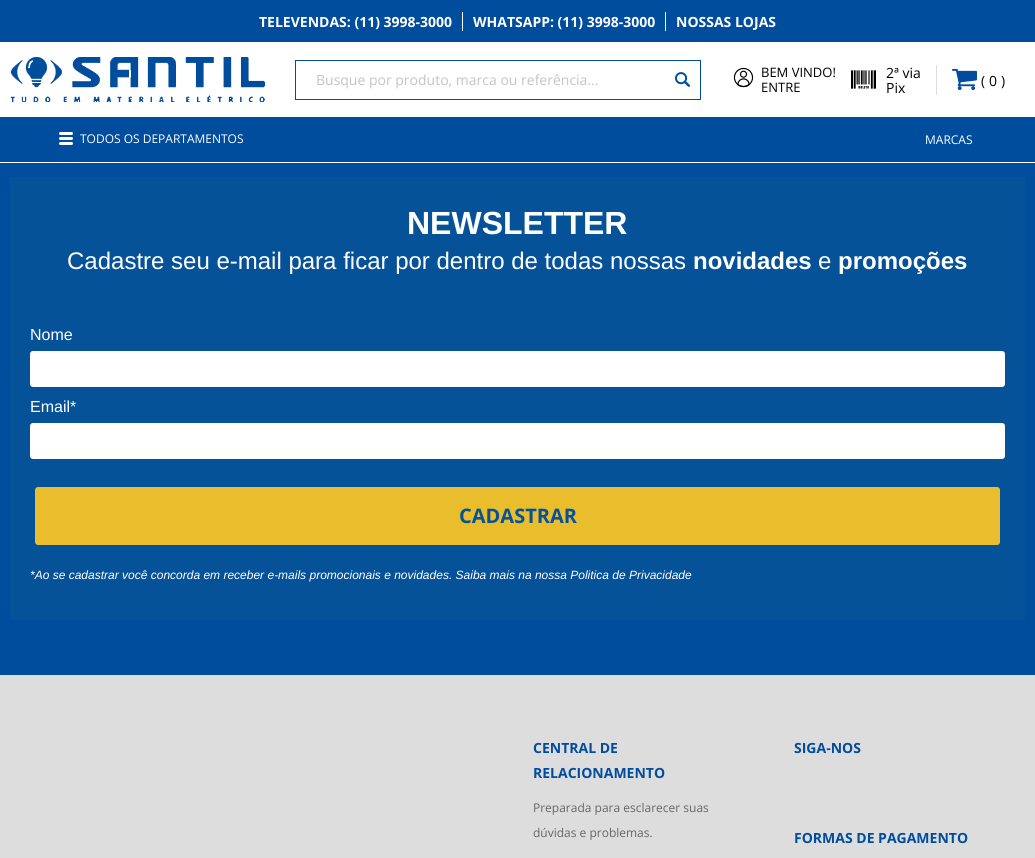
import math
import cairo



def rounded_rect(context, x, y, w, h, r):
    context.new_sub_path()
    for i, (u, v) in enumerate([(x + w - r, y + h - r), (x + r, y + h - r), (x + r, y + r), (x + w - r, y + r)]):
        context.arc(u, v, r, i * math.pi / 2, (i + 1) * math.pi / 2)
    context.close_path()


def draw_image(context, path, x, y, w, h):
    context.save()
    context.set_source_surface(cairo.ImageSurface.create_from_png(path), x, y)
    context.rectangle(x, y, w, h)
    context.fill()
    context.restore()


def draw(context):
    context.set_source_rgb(0, 76 / 255, 157 / 255)
    context.paint()
    context.set_source_rgb(1, 1, 1)
    context.rectangle(0, 42, 1035, 121)
    context.fill()
    context.rectangle(462, 12, 1, 19)
    context.fill()
    context.rectangle(665, 12, 1, 19)
    context.fill()
    draw_image(context, "images/1.png", 10, 56, 255, 46)
    context.rectangle(295.5, 60.5, 405, 39)
    context.set_source_rgb(0, 76 / 255, 157 / 255)
    context.set_line_width(1)
    context.stroke()
    draw_image(context, "images/2.png", 675, 72, 15, 15)
    draw_image(context, "images/3.png", 733, 67, 21, 21)
    context.set_source_rgb(221 / 255, 221 / 255, 221 / 255)
    context.rectangle(936, 65, 1, 30)
    context.fill()
    draw_image(context, "images/4.png", 851, 70, 25, 19)
    draw_image(context, "images/5.png", 952, 68, 25, 23)
    context.set_source_rgb(0, 76 / 255, 157 / 255)
    context.rectangle(0, 117, 1035, 45)
    context.fill()
    context.set_source_rgb(1, 1, 1)
    rounded_rect(context, 59, 132, 14, 3, 1.5)
    context.fill()
    rounded_rect(context, 59, 137, 14, 3, 1.5)
    context.fill()
    rounded_rect(context, 59, 142, 14, 3, 1.5)
    context.fill()
    context.set_source_rgb(6 / 255, 82 / 255, 152 / 255)
    context.rectangle(10, 177, 1015, 443)
    context.fill()
    context.set_source_rgb(1, 1, 1)
    rounded_rect(context, 30, 351, 975, 36, 3)
    context.fill()
    rounded_rect(context, 30, 423, 975, 36, 3)
    context.fill()
    context.set_source_rgb(233 / 255, 189 / 255, 43 / 255)
    rounded_rect(context, 35, 487, 965, 58, 3)
    context.fill()
    context.set_source_rgb(221 / 255, 221 / 255, 221 / 255)
    context.rectangle(0, 675, 1035, 183)
    context.fill()
    context.select_font_face("Open Sans", cairo.FontSlant.NORMAL, cairo.FontWeight.BOLD)
    context.set_font_size(14)
    context.set_source_rgb(1, 1, 1)
    context.move_to(259, 27)
    context.show_text("TELEVENDAS: (11) 3998-3000")
    context.move_to(473, 27)
    context.show_text("WHATSAPP: (11) 3998-3000")
    context.move_to(676, 27)
    context.show_text("NOSSAS LOJAS")
    context.select_font_face("Open Sans")
    context.set_source_rgb(196 / 255, 196 / 255, 196 / 255)
    context.move_to(316, 85)
    context.show_text("Busque por produto, marca ou referência...")
    context.set_font_size(13)
    context.set_source_rgb(0, 0, 0)
    context.move_to(761, 77)
    context.show_text("BEM VINDO!")
    context.move_to(761, 92)
    context.show_text("ENTRE")
    context.set_font_size(14)
    context.move_to(886, 78)
    context.show_text("2ª via")
    context.move_to(886, 93)
    context.show_text("Pix")
    context.move_to(981, 86)
    context.show_text("(")
    context.move_to(989, 86)
    context.show_text("0")
    context.move_to(1001, 86)
    context.show_text(")")
    context.set_font_size(12)
    context.set_source_rgb(1, 1, 1)
    context.move_to(80, 143)
    context.show_text("TODOS OS DEPARTAMENTOS")
    context.move_to(925, 144)
    context.show_text("MARCAS")
    context.select_font_face("Liberation Sans", cairo.FontSlant.NORMAL, cairo.FontWeight.BOLD)
    context.set_font_size(32)
    context.move_to(407, 234)
    context.show_text("NEWSLETTER")
    context.select_font_face("Liberation Sans")
    context.set_font_size(24)
    context.move_to(67, 269)
    context.show_text("Cadastre seu e-mail para ficar por dentro de todas nossas")
    context.select_font_face("Liberation Sans", cairo.FontSlant.NORMAL, cairo.FontWeight.BOLD)
    context.move_to(693, 269)
    context.show_text("novidades")
    context.select_font_face("Liberation Sans")
    context.move_to(818, 269)
    context.show_text("e")
    context.select_font_face("Liberation Sans", cairo.FontSlant.NORMAL, cairo.FontWeight.BOLD)
    context.move_to(838, 269)
    context.show_text("promoções")
    context.select_font_face("Liberation Sans")
    context.set_font_size(16)
    context.move_to(30, 340)
    context.show_text("Nome")
    context.move_to(30, 412)
    context.show_text("Email*")
    context.select_font_face("Open Sans", cairo.FontSlant.NORMAL, cairo.FontWeight.BOLD)
    context.set_font_size(20)
    context.set_source_rgb(6 / 255, 82 / 255, 152 / 255)
    context.move_to(459, 523)
    context.show_text("CADASTRAR")
    context.select_font_face("Liberation Sans", cairo.FontSlant.ITALIC)
    context.set_font_size(12)
    context.set_source_rgb(1, 1, 1)
    context.move_to(30, 579)
    context.show_text("*Ao se cadastrar você concorda em receber e-mails promocionais e novidades. Saiba mais na nossa Politica de Privacidade")
    context.select_font_face("Open Sans", cairo.FontSlant.NORMAL, cairo.FontWeight.BOLD)
    context.set_font_size(14)
    context.set_source_rgb(0, 76 / 255, 157 / 255)
    context.move_to(533, 753)
    context.show_text("CENTRAL DE")
    context.move_to(533, 778)
    context.show_text("RELACIONAMENTO")
    context.select_font_face("Open Sans")
    context.set_font_size(12)
    context.set_source_rgb(102 / 255, 102 / 255, 102 / 255)
    context.move_to(533, 812)
    context.show_text("Preparada para esclarecer suas")
    context.move_to(533, 837)
    context.show_text("dúvidas e problemas.")
    context.select_font_face("Open Sans", cairo.FontSlant.NORMAL, cairo.FontWeight.BOLD)
    context.set_font_size(14)
    context.set_source_rgb(0, 76 / 255, 157 / 255)
    context.move_to(794, 753)
    context.show_text("SIGA-NOS")
    context.move_to(794, 843)
    context.show_text("FORMAS DE PAGAMENTO")


surface = cairo.ImageSurface(cairo.Format.RGB24, 1035, 858)
context = cairo.Context(surface)
options = cairo.FontOptions()
options.set_hint_metrics(cairo.HintMetrics.OFF)
options.set_hint_style(cairo.HintStyle.NONE)
context.set_font_options(options)
context.set_miter_limit(4)
draw(context)
surface.write_to_png("out.png")
